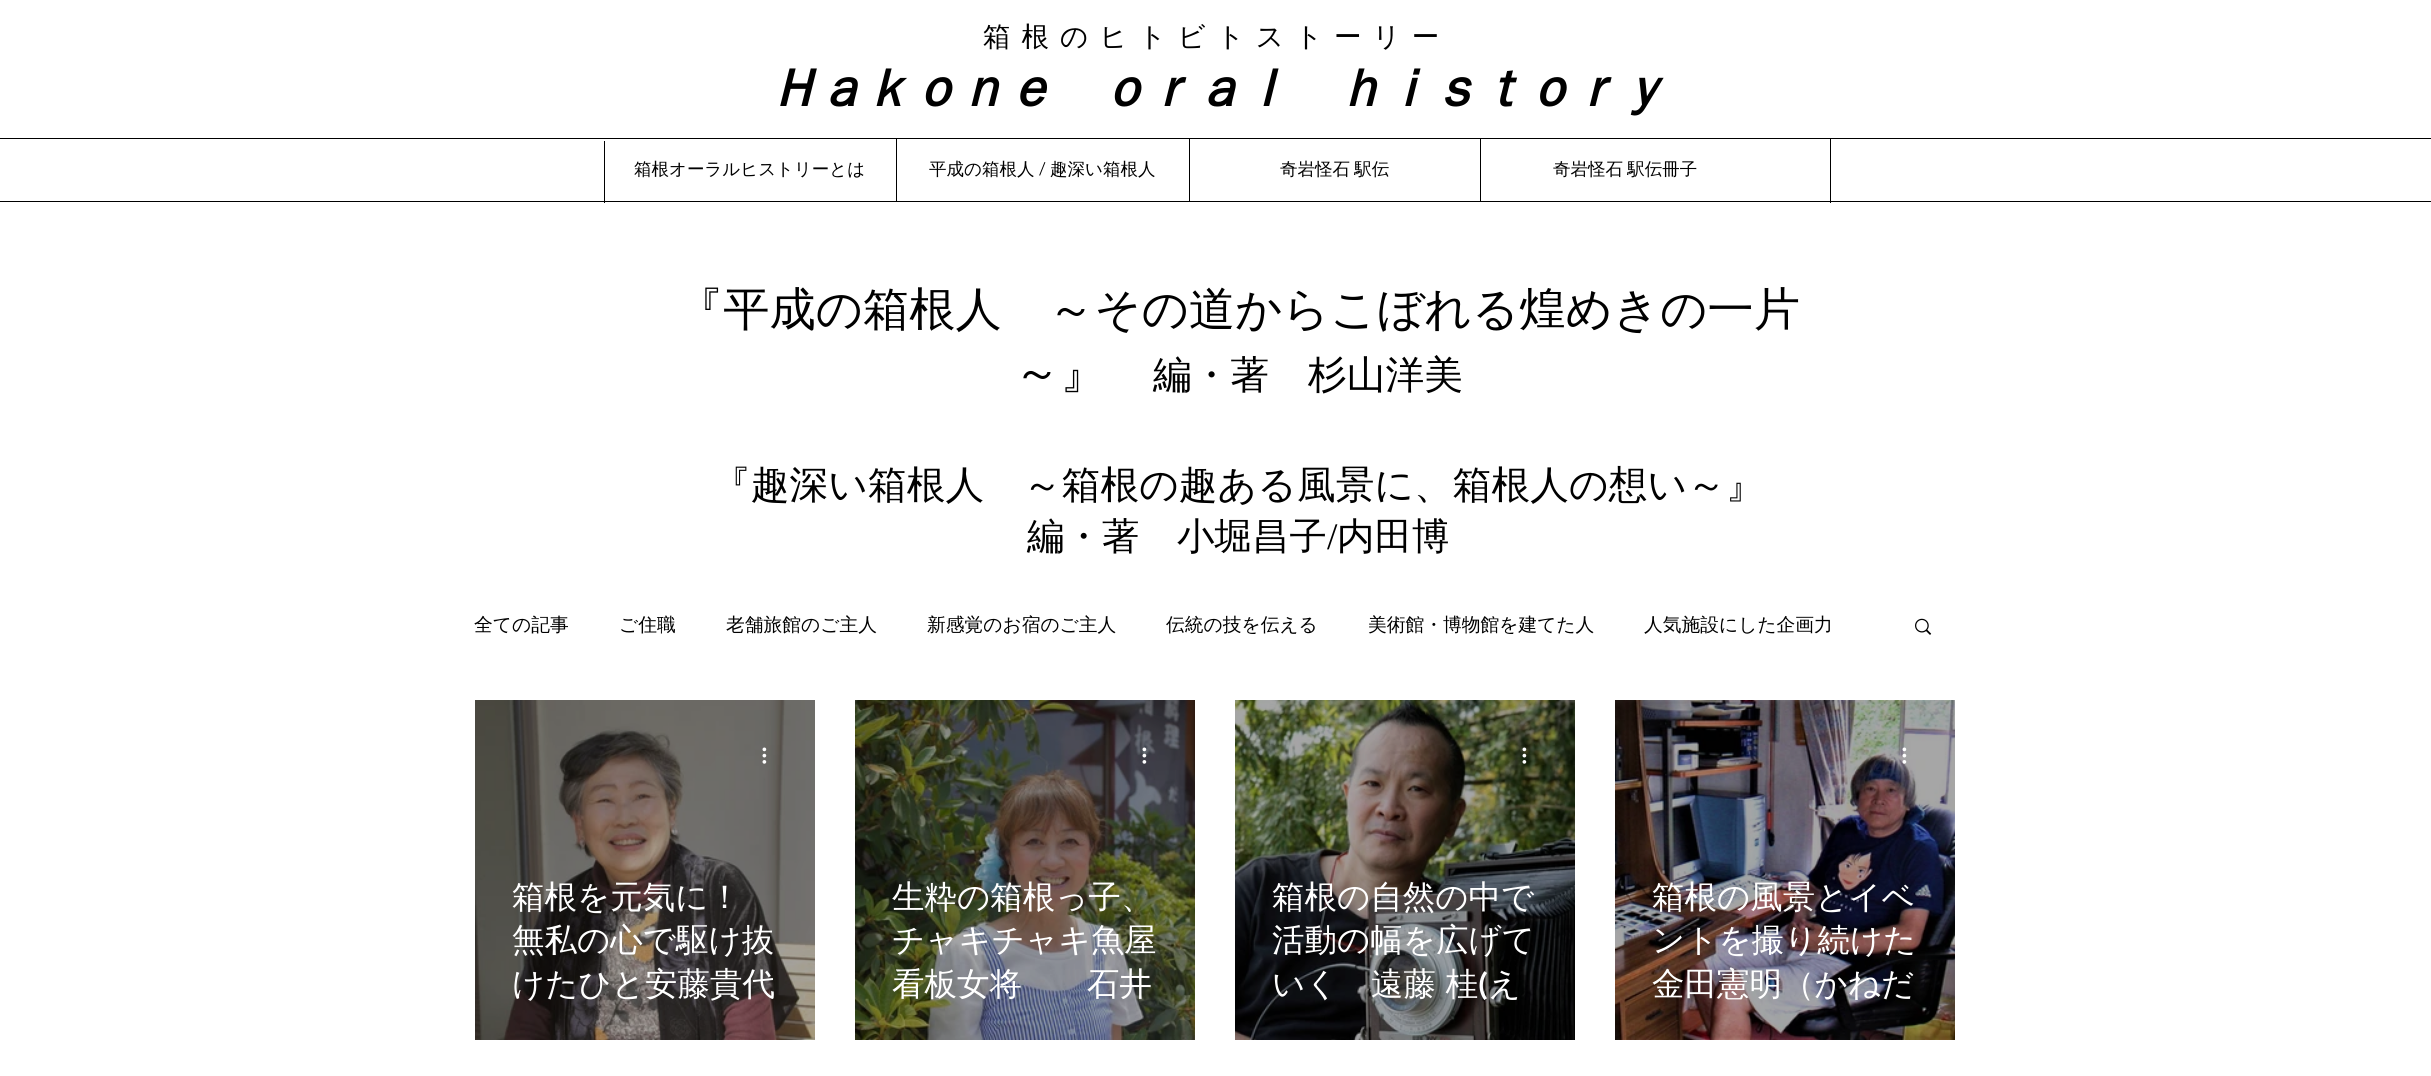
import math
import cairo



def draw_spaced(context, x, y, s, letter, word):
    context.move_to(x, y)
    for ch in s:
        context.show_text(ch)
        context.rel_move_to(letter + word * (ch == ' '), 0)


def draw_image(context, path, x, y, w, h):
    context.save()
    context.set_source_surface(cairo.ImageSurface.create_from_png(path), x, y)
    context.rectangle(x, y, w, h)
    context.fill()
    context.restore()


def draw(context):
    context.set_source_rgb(1, 1, 1)
    context.paint()
    context.set_source_rgb(0, 0, 0)
    context.rectangle(0, 138, 2431, 1)
    context.fill()
    context.rectangle(604, 141, 1, 62)
    context.fill()
    context.rectangle(896, 139, 1, 62)
    context.fill()
    context.rectangle(1189, 139, 1, 62)
    context.fill()
    context.rectangle(1480, 139, 1, 62)
    context.fill()
    context.rectangle(1830, 138, 1, 65)
    context.fill()
    context.rectangle(0, 201, 2431, 1)
    context.fill()
    draw_image(context, "images/1.png", 1915, 618, 17, 17)
    draw_image(context, "images/2.png", 475, 700, 340, 340)
    draw_image(context, "images/3.png", 762, 747, 5, 17)
    draw_image(context, "images/4.png", 855, 700, 340, 340)
    draw_image(context, "images/5.png", 1142, 747, 5, 17)
    draw_image(context, "images/6.png", 1235, 700, 340, 340)
    draw_image(context, "images/7.png", 1522, 747, 5, 17)
    draw_image(context, "images/8.png", 1615, 700, 340, 340)
    draw_image(context, "images/9.png", 1902, 747, 5, 17)
    context.select_font_face("WenQuanYi Zen Hei Medium")
    context.set_font_size(27.5)
    draw_spaced(context, 983, 46, "箱根のヒトビトストーリー", 11, 0)
    context.select_font_face("WenQuanYi Zen Hei", cairo.FontSlant.ITALIC, cairo.FontWeight.BOLD)
    context.set_font_size(52.5)
    draw_spaced(context, 767, 106, "Ｈａｋｏｎｅ　ｏｒａｌ　ｈｉｓｔｏｒｙ", -5.25, 0)
    context.select_font_face("WenQuanYi Zen Hei Medium")
    context.set_font_size(17.5)
    context.move_to(634, 175)
    context.show_text("箱根オーラルヒストリーとは")
    context.move_to(929, 175)
    context.show_text("平成の箱根人")
    context.select_font_face("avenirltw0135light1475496 Light")
    context.move_to(1039, 175)
    context.show_text("/")
    context.select_font_face("WenQuanYi Zen Hei Medium")
    context.move_to(1050, 175)
    context.show_text("趣深い箱根人")
    draw_spaced(context, 1280, 175, "奇岩怪石 駅伝", 0, -1)
    draw_spaced(context, 1553, 175, "奇岩怪石 駅伝冊子", 0, -1)
    context.set_font_size(46.25)
    context.move_to(677, 325)
    context.show_text("『平成の箱根人　～その道からこぼれる煌めきの一片")
    context.move_to(1014, 388)
    context.show_text("～』")
    context.set_font_size(38.75)
    context.move_to(1153, 388)
    context.show_text("編・著　杉山洋美")
    context.move_to(712, 498)
    context.show_text("『趣深い箱根人　～箱根の趣ある風景に、箱根人の想い～』")
    context.set_font_size(37.5)
    context.move_to(1027, 549)
    context.show_text("編・著　小堀昌子")
    context.select_font_face("Liberation Serif")
    context.move_to(1327, 549)
    context.show_text("/")
    context.select_font_face("WenQuanYi Zen Hei Medium")
    context.move_to(1337, 549)
    context.show_text("内田博")
    context.set_font_size(18.75)
    context.move_to(474, 631)
    context.show_text("全ての記事")
    context.move_to(619, 631)
    context.show_text("ご住職")
    context.move_to(726, 631)
    context.show_text("老舗旅館のご主人")
    context.move_to(927, 631)
    context.show_text("新感覚のお宿のご主人")
    context.move_to(1166, 631)
    context.show_text("伝統の技を伝える")
    context.move_to(1368, 631)
    context.show_text("美術館・博物館を建てた人")
    context.move_to(1644, 631)
    context.show_text("人気施設にした企画力")
    context.set_font_size(32.5)
    context.set_source_rgb(1, 1, 1)
    context.move_to(512, 908)
    context.show_text("箱根を元気に！")
    context.move_to(512, 951)
    context.show_text("無私の心で駆け抜")
    context.move_to(512, 995)
    context.show_text("けたひと安藤貴代")
    context.move_to(892, 908)
    context.show_text("生粋の箱根っ子、")
    context.move_to(892, 951)
    context.show_text("チャキチャキ魚屋")
    context.move_to(892, 995)
    context.show_text("看板女将　　石井")
    context.move_to(1272, 908)
    context.show_text("箱根の自然の中で")
    context.move_to(1272, 951)
    context.show_text("活動の幅を広げて")
    context.move_to(1272, 995)
    context.show_text("いく　遠藤 桂")
    context.select_font_face("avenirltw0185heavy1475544 Black")
    context.move_to(1478, 995)
    context.show_text("(")
    context.select_font_face("WenQuanYi Zen Hei Medium")
    context.move_to(1488, 995)
    context.show_text("え")
    context.move_to(1652, 908)
    context.show_text("箱根の風景とイベ")
    context.move_to(1652, 951)
    context.show_text("ントを撮り続けた")
    context.move_to(1652, 995)
    context.show_text("金田憲明（かねだ")


surface = cairo.ImageSurface(cairo.Format.RGB24, 2431, 1076)
context = cairo.Context(surface)
options = cairo.FontOptions()
options.set_hint_metrics(cairo.HintMetrics.OFF)
options.set_hint_style(cairo.HintStyle.NONE)
context.set_font_options(options)
context.set_miter_limit(4)
draw(context)
surface.write_to_png("out.png")
